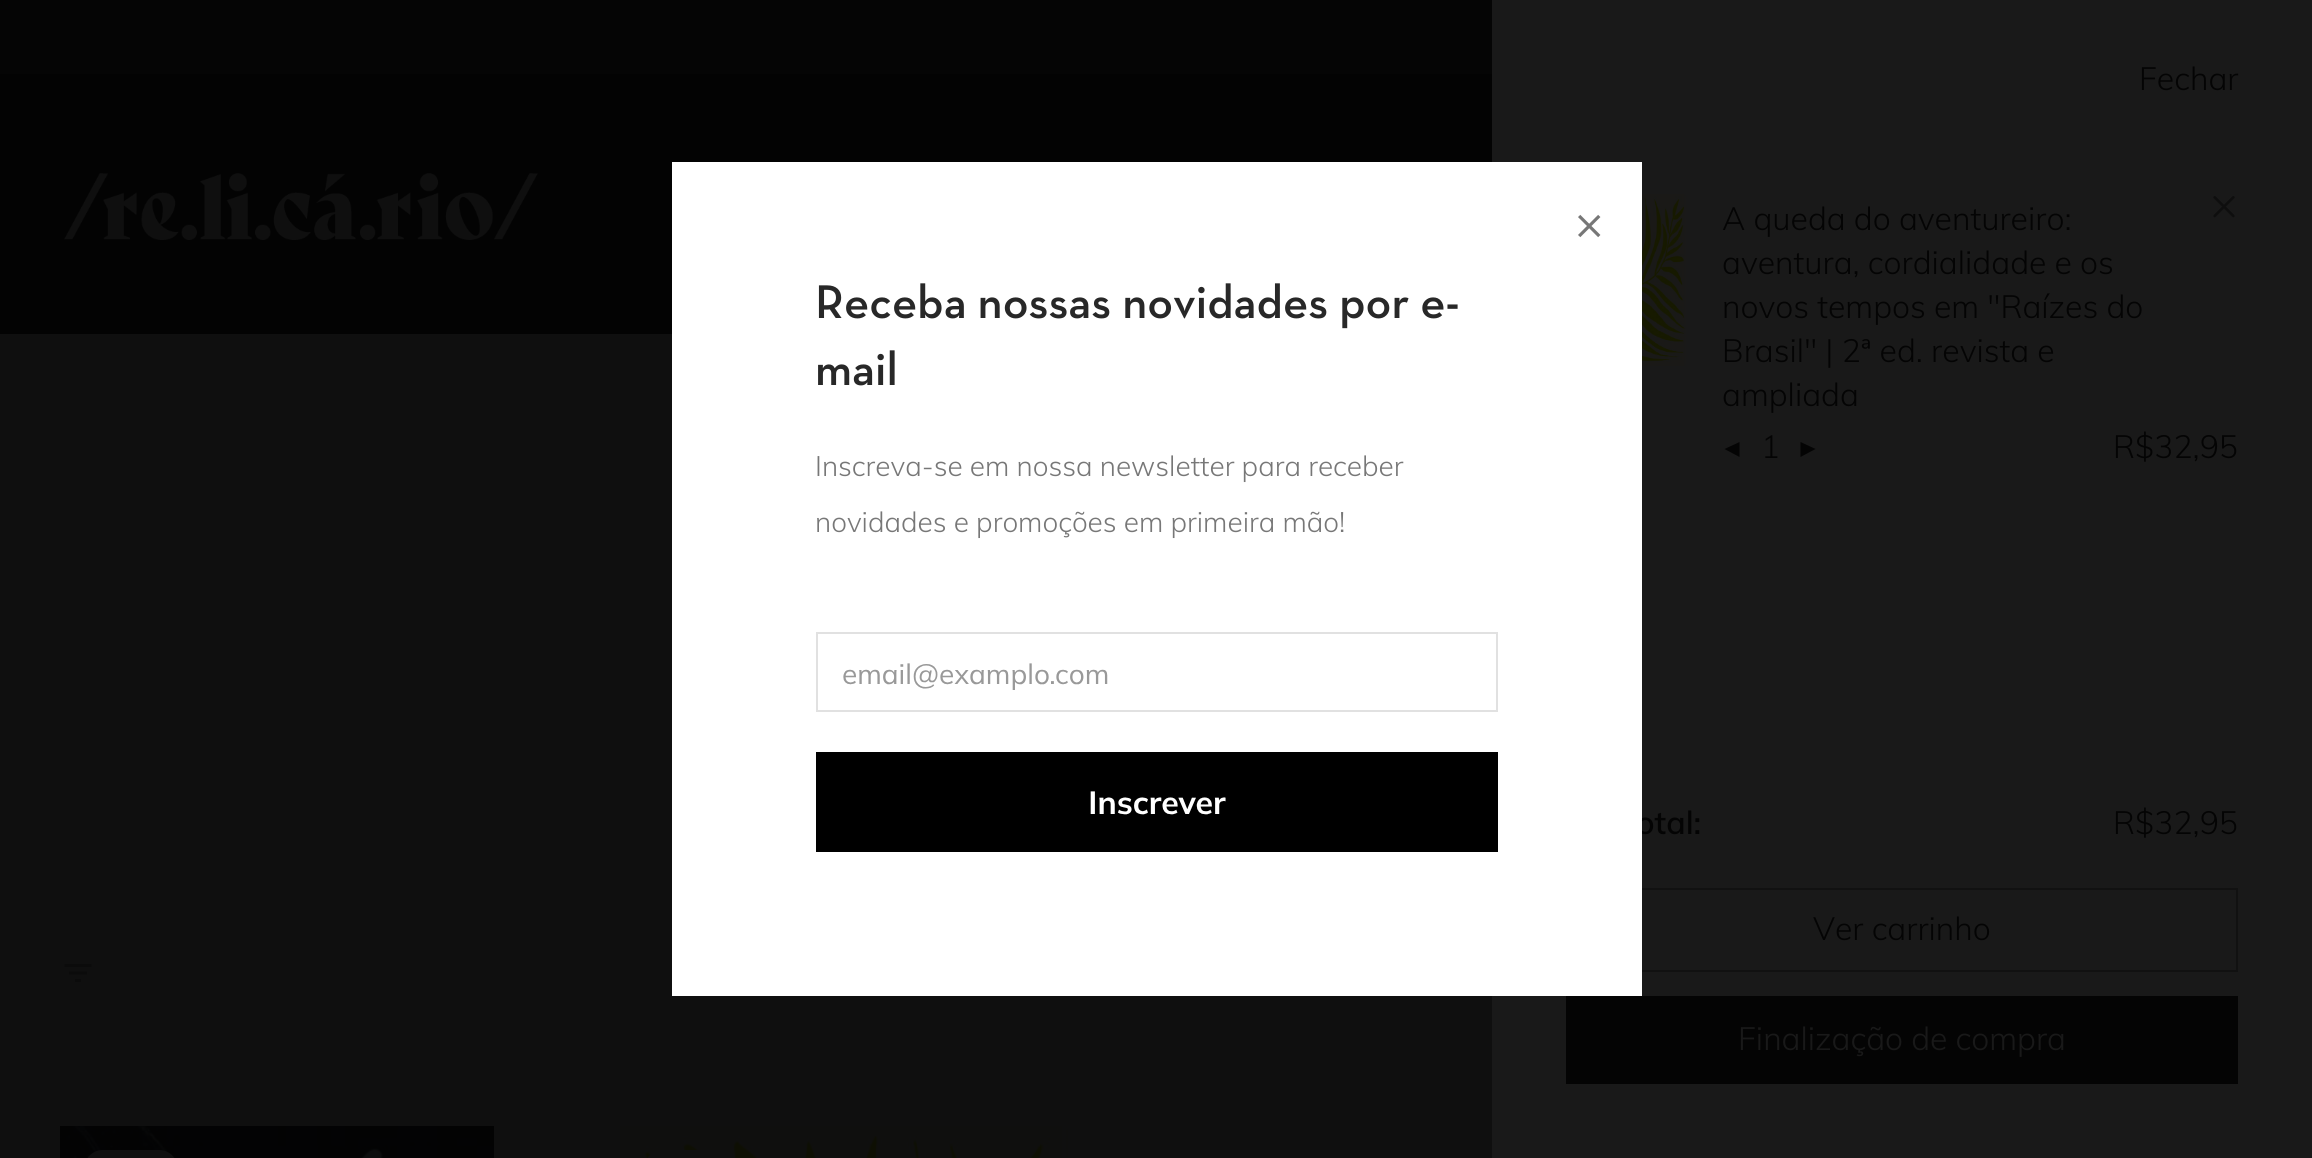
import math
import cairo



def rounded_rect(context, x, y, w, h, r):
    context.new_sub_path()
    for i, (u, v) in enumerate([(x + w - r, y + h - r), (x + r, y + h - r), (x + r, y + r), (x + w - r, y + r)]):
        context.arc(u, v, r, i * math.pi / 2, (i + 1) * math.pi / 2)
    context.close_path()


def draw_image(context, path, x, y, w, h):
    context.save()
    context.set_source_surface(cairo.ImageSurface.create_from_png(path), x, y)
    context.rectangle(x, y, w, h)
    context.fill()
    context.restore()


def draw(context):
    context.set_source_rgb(15 / 255, 15 / 255, 15 / 255)
    context.paint()
    context.set_source_rgb(5 / 255, 5 / 255, 5 / 255)
    context.rectangle(0, 0, 1492, 74)
    context.fill()
    context.set_source_rgb(3 / 255, 3 / 255, 3 / 255)
    context.rectangle(0, 74, 1492, 260)
    context.fill()
    draw_image(context, "images/1.png", 64, 173, 474, 67)
    draw_image(context, "images/2.png", 64, 964, 28, 18)
    draw_image(context, "images/3.png", 60, 1126, 434, 32)
    context.set_source_rgb(15 / 255, 15 / 255, 15 / 255)
    rounded_rect(context, 84, 1150, 94, 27, 19)
    context.fill()
    draw_image(context, "images/4.png", 620, 1126, 448, 32)
    rounded_rect(context, 644, 1150, 94, 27, 19)
    context.fill()
    context.set_source_rgb(25 / 255, 25 / 255, 25 / 255)
    context.rectangle(1492, 0, 820, 1158)
    context.fill()
    draw_image(context, "images/7.png", 1642, 194, 44, 172)
    draw_image(context, "images/8.png", 2213, 196, 22, 22)
    context.set_source_rgb(4 / 255, 4 / 255, 4 / 255)
    context.new_path()
    context.move_to(1739.5, 442)
    context.line_to(1739.5, 457)
    context.line_to(1724.5, 449)
    context.close_path()
    context.fill()
    context.new_path()
    context.move_to(1800.5, 442)
    context.line_to(1800.5, 457)
    context.line_to(1815.5, 449)
    context.close_path()
    context.fill()
    context.rectangle(1567, 889, 670, 82)
    context.set_source_rgb(17 / 255, 17 / 255, 17 / 255)
    context.stroke()
    context.set_source_rgb(4 / 255, 4 / 255, 4 / 255)
    context.rectangle(1566, 996, 672, 88)
    context.fill()
    context.select_font_face("Muli Light")
    context.set_font_size(32)
    context.move_to(2139, 90)
    context.show_text("Fechar")
    context.move_to(1722, 230)
    context.show_text("A queda do aventureiro:")
    context.move_to(1722, 274)
    context.show_text("aventura, cordialidade e os")
    context.move_to(1722, 318)
    context.show_text("novos tempos em \"Raízes do")
    context.move_to(1722, 362)
    context.show_text("Brasil\" | 2ª ed. revista e")
    context.move_to(1722, 406)
    context.show_text("ampliada")
    context.move_to(1761, 458)
    context.show_text("1")
    context.move_to(2113, 458)
    context.show_text("R$32,95")
    context.select_font_face("Muli SemiBold")
    context.move_to(1636, 834)
    context.show_text("otal:")
    context.set_source_rgb(1, 1, 1)
    context.rectangle(672, 162, 970, 834)
    context.fill()
    draw_image(context, "images/6.png", 816, 632, 682, 220)
    draw_image(context, "images/5.png", 1578, 214, 23, 24)
    context.select_font_face("Muli Light")
    context.set_font_size(28)
    context.set_source_rgb(119 / 255, 119 / 255, 119 / 255)
    context.move_to(815, 532)
    context.show_text("novidades e promoções em primeira mão!")
    context.move_to(815, 476)
    context.show_text("Inscreva-se em nossa newsletter para receber")
    context.select_font_face("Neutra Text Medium")
    context.set_font_size(48)
    context.set_source_rgb(40 / 255, 40 / 255, 40 / 255)
    context.move_to(815, 385)
    context.show_text("mail")
    context.move_to(815, 318)
    context.show_text("Receba nossas novidades por e-")
    context.select_font_face("Muli Light")
    context.set_font_size(32)
    context.set_source_rgb(4 / 255, 4 / 255, 4 / 255)
    context.move_to(2113, 834)
    context.show_text("R$32,95")
    context.move_to(1813, 940)
    context.show_text("Ver carrinho")
    context.set_source_rgb(25 / 255, 25 / 255, 25 / 255)
    context.move_to(1738, 1050)
    context.show_text("Finalização de compra")


surface = cairo.ImageSurface(cairo.Format.RGB24, 2312, 1158)
context = cairo.Context(surface)
options = cairo.FontOptions()
options.set_hint_metrics(cairo.HintMetrics.OFF)
options.set_hint_style(cairo.HintStyle.NONE)
context.set_font_options(options)
context.set_miter_limit(4)
draw(context)
surface.write_to_png("out.png")
